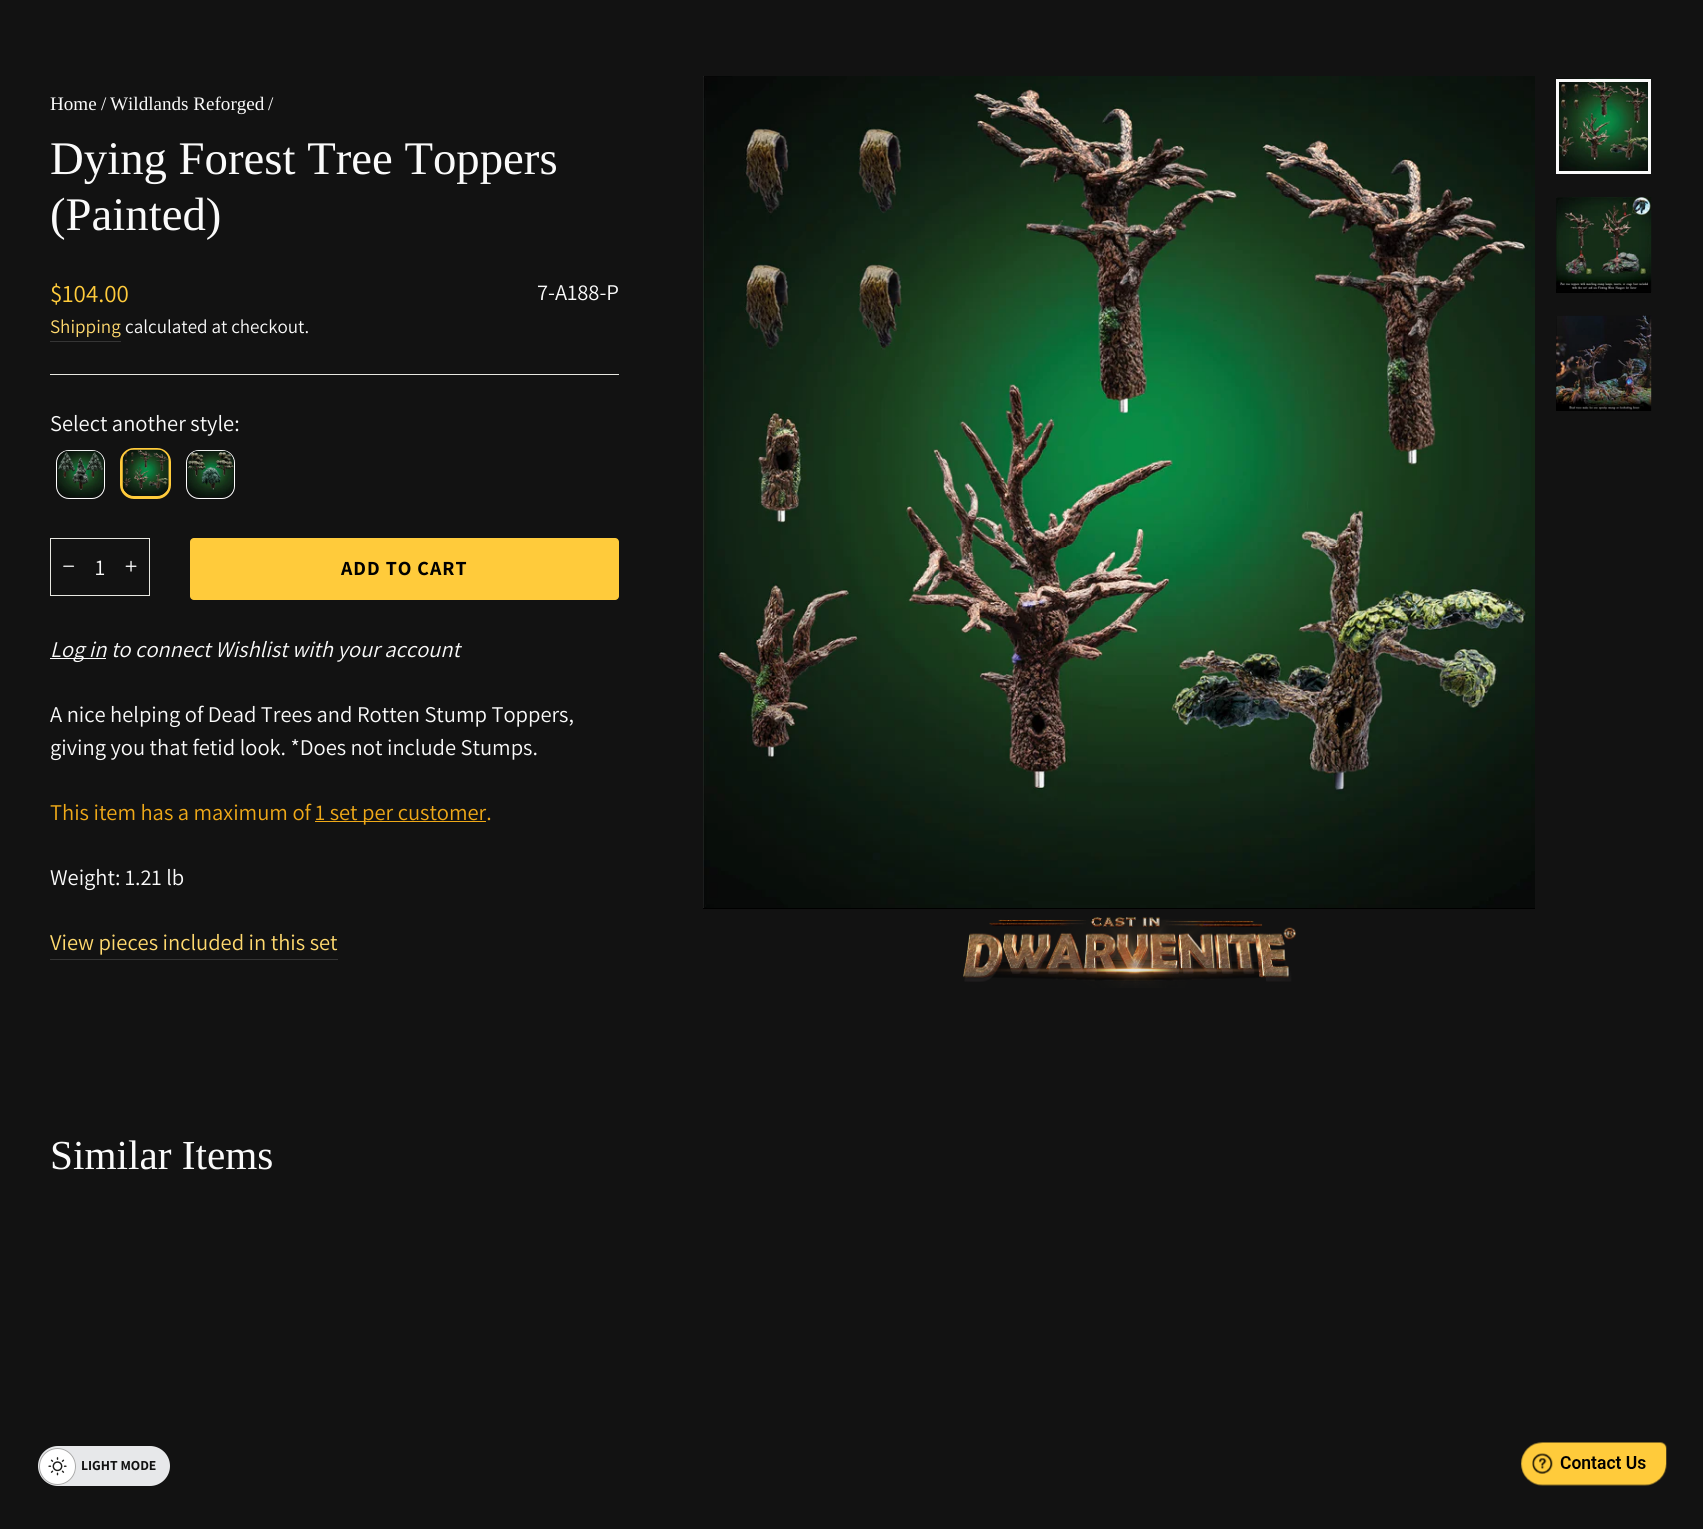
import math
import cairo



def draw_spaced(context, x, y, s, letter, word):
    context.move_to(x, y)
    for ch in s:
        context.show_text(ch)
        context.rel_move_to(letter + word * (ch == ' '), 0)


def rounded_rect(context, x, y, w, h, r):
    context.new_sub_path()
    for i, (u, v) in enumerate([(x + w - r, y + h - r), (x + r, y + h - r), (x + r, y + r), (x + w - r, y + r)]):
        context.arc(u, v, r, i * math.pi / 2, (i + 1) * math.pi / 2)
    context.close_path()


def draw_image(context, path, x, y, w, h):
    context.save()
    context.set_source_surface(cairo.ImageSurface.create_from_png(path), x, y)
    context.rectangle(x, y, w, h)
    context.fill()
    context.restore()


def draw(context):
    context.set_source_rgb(18 / 255, 18 / 255, 18 / 255)
    context.paint()
    context.set_source_rgb(53 / 255, 53 / 255, 53 / 255)
    context.rectangle(50, 341, 71, 1)
    context.fill()
    context.set_source_rgb(232 / 255, 232 / 255, 225 / 255)
    context.rectangle(50, 374, 569, 1)
    context.fill()
    rounded_rect(context, 56.5, 450.5, 48, 48, 12.5)
    context.set_source_rgb(1, 1, 1)
    context.set_line_width(1)
    context.stroke()
    draw_image(context, "images/1.png", 57, 450, 47, 47)
    rounded_rect(context, 121.5, 449.5, 48, 48, 12.5)
    context.set_source_rgb(1, 203 / 255, 59 / 255)
    context.set_line_width(3)
    context.stroke()
    draw_image(context, "images/2.png", 122, 449, 47, 47)
    rounded_rect(context, 186.5, 450.5, 48, 48, 12.5)
    context.set_source_rgb(1, 1, 1)
    context.set_line_width(1)
    context.stroke()
    draw_image(context, "images/3.png", 187, 450, 47, 47)
    context.rectangle(50.5, 538.5, 99, 57)
    context.set_source_rgb(232 / 255, 232 / 255, 225 / 255)
    context.stroke()
    draw_image(context, "images/4.png", 63, 565, 12, 2)
    draw_image(context, "images/5.png", 125, 560, 12, 12)
    context.set_source_rgb(1, 203 / 255, 59 / 255)
    rounded_rect(context, 190, 538, 429, 62, 4)
    context.fill()
    context.set_source_rgb(250 / 255, 250 / 255, 250 / 255)
    context.rectangle(50, 658, 56, 1)
    context.fill()
    context.set_source_rgb(239 / 255, 169 / 255, 24 / 255)
    context.rectangle(315, 821, 171, 1)
    context.fill()
    context.set_source_rgb(53 / 255, 53 / 255, 53 / 255)
    context.rectangle(50, 959, 288, 1)
    context.fill()
    context.set_source_rgb(0, 0, 0)
    context.rectangle(703, 908, 832, 1)
    context.fill()
    draw_image(context, "images/6.png", 703, 76, 832, 832)
    draw_image(context, "images/7.png", 1556, 78, 95, 93)
    context.rectangle(1557.5, 80.5, 92, 92)
    context.set_source_rgb(250 / 255, 250 / 255, 250 / 255)
    context.set_line_width(3)
    context.stroke()
    context.set_source_rgb(0, 0, 0)
    context.rectangle(1556, 198, 95, 95)
    context.fill()
    draw_image(context, "images/8.png", 1556, 197, 96, 95)
    context.rectangle(1556, 316, 95, 95)
    context.fill()
    draw_image(context, "images/9.png", 1556, 315, 96, 96)
    draw_image(context, "images/10.png", 963, 917, 333, 71)
    context.set_source_rgb(231 / 255, 232 / 255, 234 / 255)
    rounded_rect(context, 38, 1446, 132, 40, 20)
    context.fill()
    context.set_source_rgb(1, 1, 1)
    context.arc(57.5, 1466.5, 18.5, 0, 2 * math.pi)
    context.fill()
    draw_image(context, "images/11.png", 48, 1457, 19, 19)
    context.arc(57.5, 1466.5, 18, 0, 2 * math.pi)
    context.set_source_rgb(169 / 255, 169 / 255, 169 / 255)
    context.set_line_width(1)
    context.stroke()
    draw_image(context, "images/12.png", 1521, 1442, 146, 44)
    context.select_font_face("Liberation Serif")
    context.set_font_size(19.1)
    context.set_source_rgb(250 / 255, 250 / 255, 250 / 255)
    context.move_to(50, 110)
    context.show_text("Home")
    context.move_to(101, 110)
    context.show_text("/")
    context.move_to(110, 110)
    context.show_text("Wildlands Reforged")
    context.move_to(268, 110)
    context.show_text("/")
    context.set_font_size(46.75)
    context.move_to(50, 174)
    context.show_text("Dying Forest Tree Toppers")
    context.move_to(50, 230)
    context.show_text("(Painted)")
    context.select_font_face("Assistant")
    context.set_font_size(25)
    context.set_source_rgb(1, 203 / 255, 59 / 255)
    context.move_to(50, 302)
    context.show_text("$104.00")
    context.set_font_size(19.1)
    context.set_source_rgb(1, 217 / 255, 110 / 255)
    context.move_to(50, 333)
    context.show_text("Shipping")
    context.set_source_rgb(250 / 255, 250 / 255, 250 / 255)
    context.move_to(125, 333)
    context.show_text("calculated at checkout.")
    context.set_font_size(22.5)
    context.move_to(537, 300)
    context.show_text("7-A188-P")
    context.move_to(50, 431)
    context.show_text("Select another style:")
    context.move_to(95, 575)
    context.show_text("1")
    context.select_font_face("Assistant", cairo.FontSlant.NORMAL, cairo.FontWeight.BOLD)
    context.set_font_size(20)
    context.set_source_rgb(0, 0, 0)
    draw_spaced(context, 341, 575, "ADD TO CART", 1, 0)
    context.select_font_face("Assistant", cairo.FontSlant.ITALIC)
    context.set_font_size(22.5)
    context.set_source_rgb(250 / 255, 250 / 255, 250 / 255)
    context.move_to(50, 657)
    context.show_text("Log in to connect Wishlist with your account")
    context.select_font_face("Assistant")
    context.move_to(50, 722)
    context.show_text("A nice helping of Dead Trees and Rotten Stump Toppers,")
    context.move_to(50, 755)
    context.show_text("giving you that fetid look. *Does not include Stumps.")
    context.set_source_rgb(239 / 255, 169 / 255, 24 / 255)
    context.move_to(50, 820)
    context.show_text("This item has a maximum of")
    context.move_to(315, 820)
    context.show_text("1 set per customer.")
    context.set_source_rgb(250 / 255, 250 / 255, 250 / 255)
    context.move_to(50, 885)
    context.show_text("Weight: 1.21 lb")
    context.set_source_rgb(1, 217 / 255, 110 / 255)
    context.move_to(50, 950)
    context.show_text("View pieces included in this set")
    context.select_font_face("Liberation Serif")
    context.set_font_size(41.25)
    context.set_source_rgb(250 / 255, 250 / 255, 250 / 255)
    context.move_to(50, 1169)
    context.show_text("Similar Items")
    context.select_font_face("Assistant", cairo.FontSlant.NORMAL, cairo.FontWeight.BOLD)
    context.set_font_size(13.75)
    context.set_source_rgb(18 / 255, 18 / 255, 18 / 255)
    context.move_to(81, 1470)
    context.show_text("LIGHT MODE")


surface = cairo.ImageSurface(cairo.Format.RGB24, 1703, 1529)
context = cairo.Context(surface)
options = cairo.FontOptions()
options.set_hint_metrics(cairo.HintMetrics.OFF)
options.set_hint_style(cairo.HintStyle.NONE)
context.set_font_options(options)
context.set_miter_limit(4)
draw(context)
surface.write_to_png("out.png")
